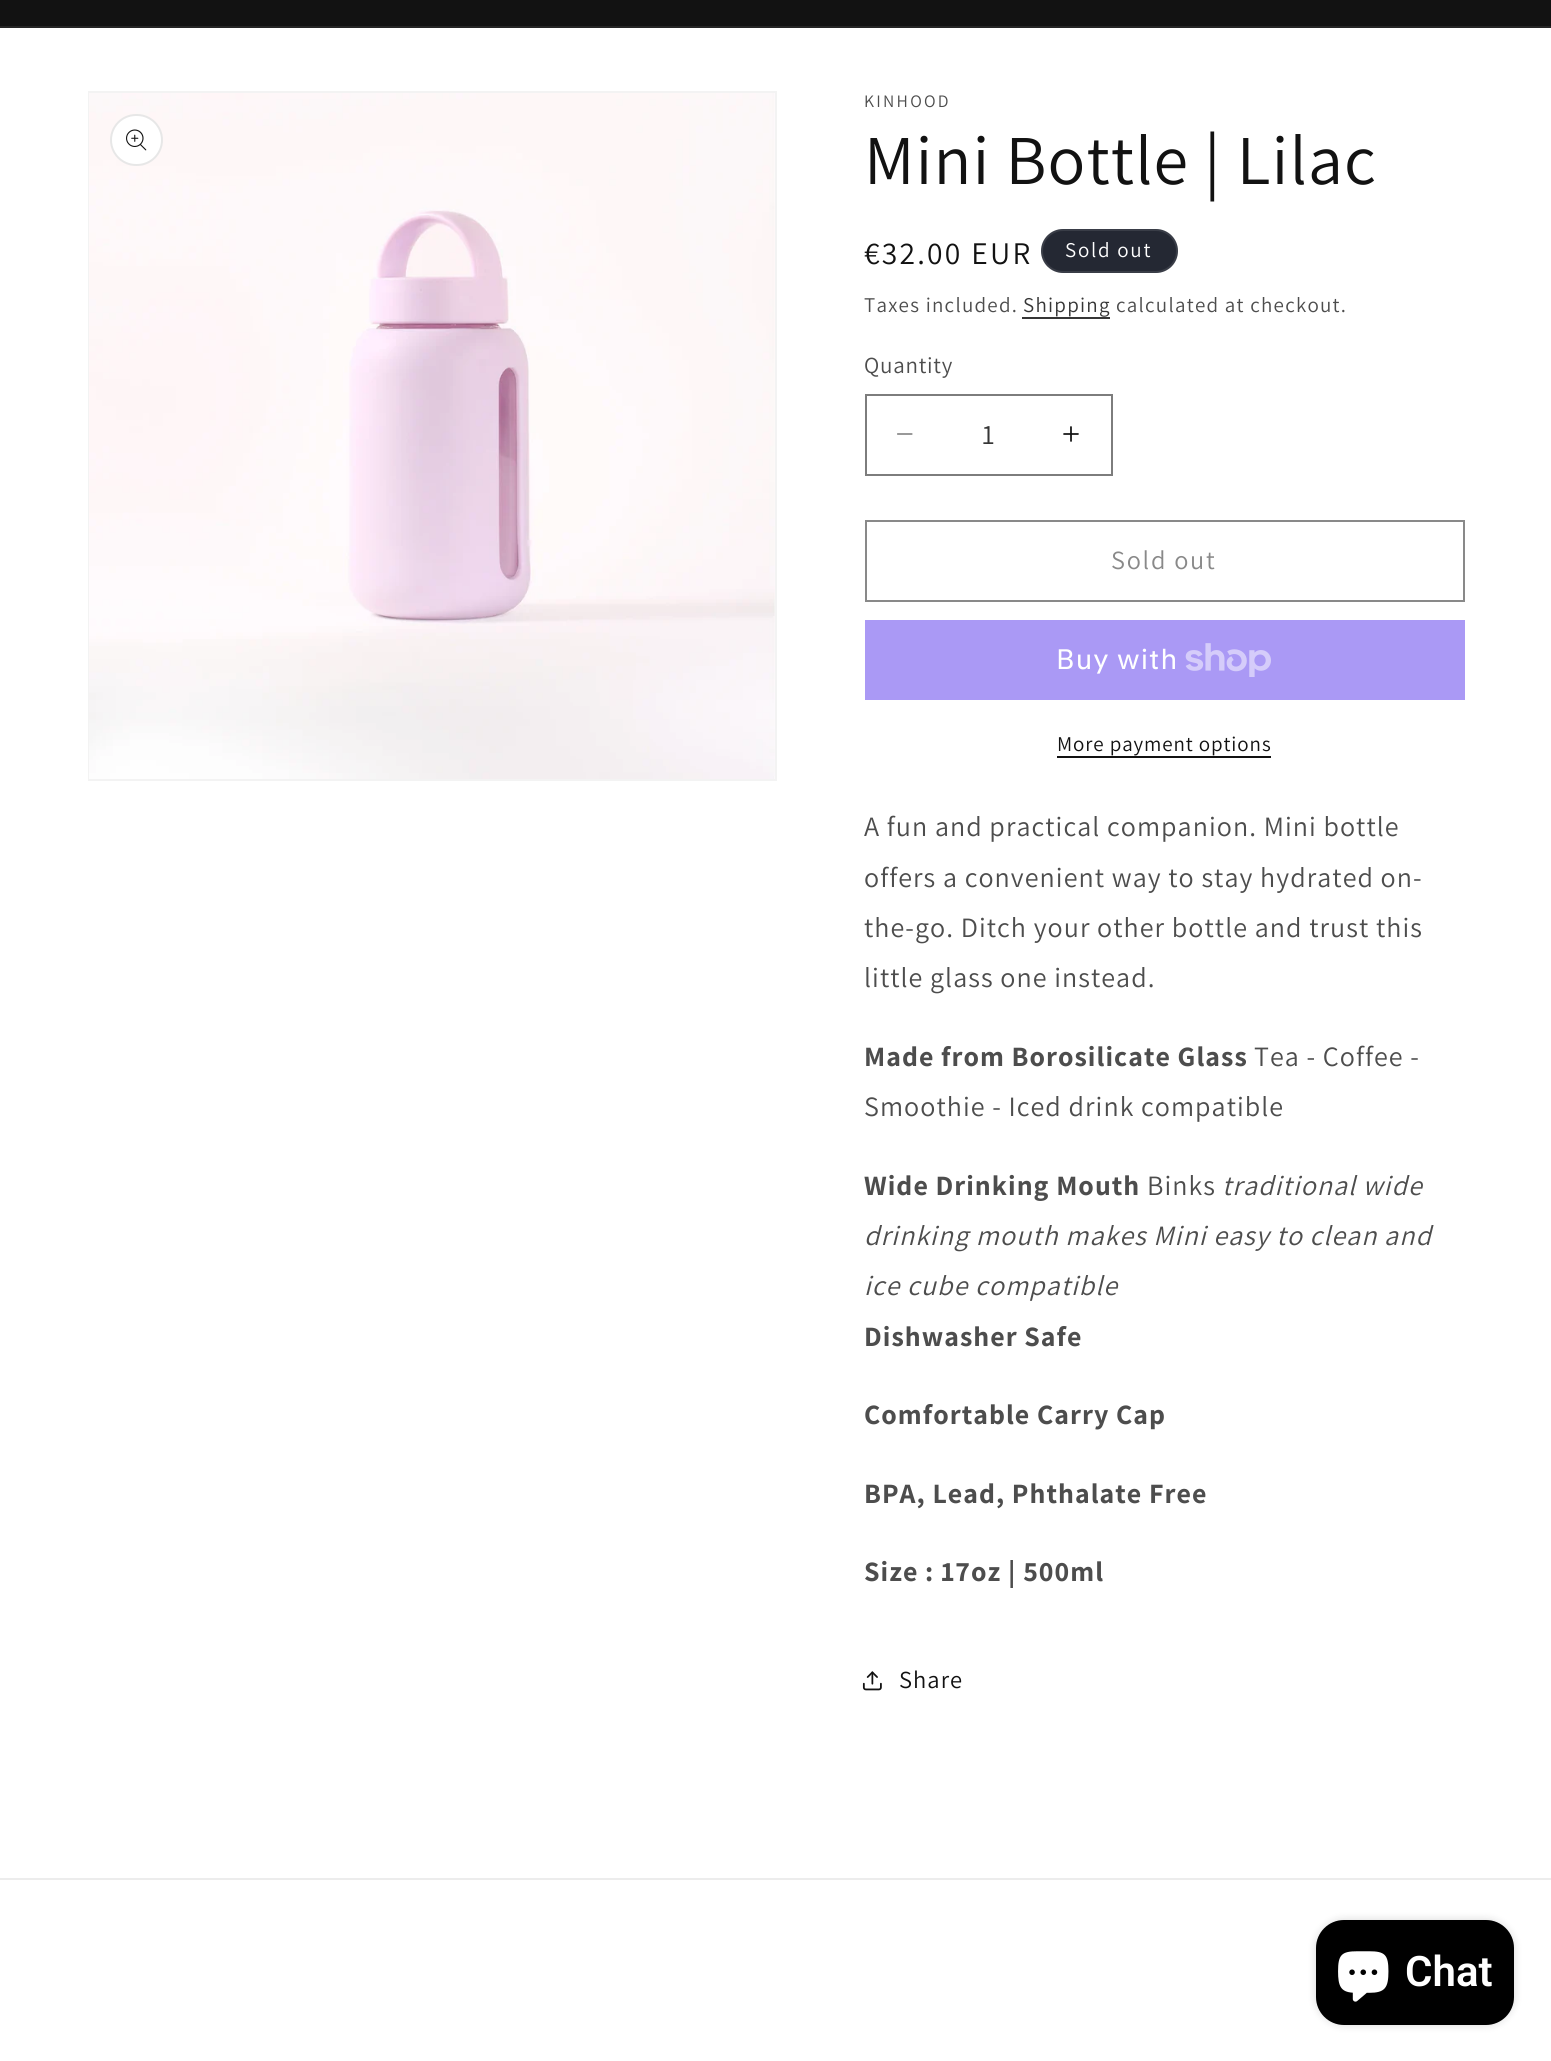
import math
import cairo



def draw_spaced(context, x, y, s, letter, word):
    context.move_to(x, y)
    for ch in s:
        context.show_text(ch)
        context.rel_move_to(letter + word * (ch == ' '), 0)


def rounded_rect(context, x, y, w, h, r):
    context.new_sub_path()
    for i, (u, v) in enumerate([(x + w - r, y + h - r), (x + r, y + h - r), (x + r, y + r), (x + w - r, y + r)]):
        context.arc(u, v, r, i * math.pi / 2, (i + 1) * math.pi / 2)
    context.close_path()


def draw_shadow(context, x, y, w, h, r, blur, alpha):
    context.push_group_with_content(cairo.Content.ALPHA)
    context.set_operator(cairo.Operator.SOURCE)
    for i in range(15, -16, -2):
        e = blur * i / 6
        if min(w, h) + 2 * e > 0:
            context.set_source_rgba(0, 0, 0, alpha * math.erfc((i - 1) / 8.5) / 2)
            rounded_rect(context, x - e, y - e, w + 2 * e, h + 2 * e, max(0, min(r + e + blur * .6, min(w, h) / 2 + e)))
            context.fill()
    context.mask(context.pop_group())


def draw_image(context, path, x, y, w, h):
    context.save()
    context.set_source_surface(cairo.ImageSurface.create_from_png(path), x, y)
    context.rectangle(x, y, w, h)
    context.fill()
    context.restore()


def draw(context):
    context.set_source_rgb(1, 1, 1)
    context.paint()
    context.set_source_rgb(18 / 255, 18 / 255, 18 / 255)
    context.rectangle(0, 0, 1551, 26)
    context.fill()
    context.set_source_rgb(37 / 255, 37 / 255, 37 / 255)
    context.rectangle(0, 26, 1551, 2)
    context.fill()
    context.rectangle(89, 92, 687, 688)
    context.set_source_rgb(243 / 255, 243 / 255, 243 / 255)
    context.stroke()
    draw_image(context, "images/1.png", 89, 93, 686, 686)
    context.set_source_rgb(1, 1, 1)
    rounded_rect(context, 110, 114, 53, 52, 26)
    context.fill()
    rounded_rect(context, 111, 115, 51, 50, 25)
    context.set_source_rgba(18 / 255, 18 / 255, 18 / 255, 0.1)
    context.stroke()
    draw_image(context, "images/2.png", 126, 129, 21, 22)
    context.set_source_rgb(36 / 255, 40 / 255, 51 / 255)
    rounded_rect(context, 1041, 229, 137, 44, 22)
    context.fill()
    rounded_rect(context, 1042, 230, 135, 42, 21)
    context.set_source_rgba(1, 1, 1, 0.1)
    context.stroke()
    context.set_source_rgb(54 / 255, 54 / 255, 54 / 255)
    context.rectangle(1022, 317, 88, 2)
    context.fill()
    draw_image(context, "images/3.png", 897, 433, 16, 2)
    draw_image(context, "images/4.png", 1063, 426, 16, 16)
    context.rectangle(866, 395, 246, 80)
    context.set_source_rgb(125 / 255, 125 / 255, 125 / 255)
    context.stroke()
    context.rectangle(866, 521, 598, 80)
    context.set_source_rgb(137 / 255, 137 / 255, 137 / 255)
    context.stroke()
    context.set_source_rgb(170 / 255, 153 / 255, 245 / 255)
    context.rectangle(865, 620, 600, 80)
    context.fill()
    draw_image(context, "images/5.png", 1185, 643, 86, 34)
    context.set_source_rgb(18 / 255, 18 / 255, 18 / 255)
    context.rectangle(1057, 756, 214, 2)
    context.fill()
    draw_image(context, "images/6.png", 862, 1671, 20, 20)
    context.set_source_rgb(236 / 255, 236 / 255, 236 / 255)
    context.rectangle(0, 1878, 1551, 2)
    context.fill()
    context.set_source_rgb(0, 0, 0)
    draw_shadow(context, 1316, 1920, 198, 105, 28, 4.5, 0.15)
    context.set_source_rgb(0, 0, 0)
    rounded_rect(context, 1316, 1920, 198, 105, 28)
    context.fill()
    draw_image(context, "images/7.png", 1338, 1951, 51, 51)
    context.select_font_face("Assistant")
    context.set_font_size(17.5)
    context.set_source_rgb(77 / 255, 77 / 255, 77 / 255)
    draw_spaced(context, 864, 107, "KINHOOD", 2.25, 0)
    context.set_font_size(70)
    context.set_source_rgb(18 / 255, 18 / 255, 18 / 255)
    draw_spaced(context, 864, 184, "Mini Bottle | Lilac", 1.05, 0)
    context.set_font_size(31.5)
    draw_spaced(context, 864, 264, "€32.00 EUR", 2.25, 0)
    context.set_font_size(21)
    context.set_source_rgb(1, 1, 1)
    draw_spaced(context, 1065, 257, "Sold out", 1.75, 0)
    context.set_source_rgb(77 / 255, 77 / 255, 77 / 255)
    draw_spaced(context, 864, 312, "Taxes included.", 1.25, 0)
    context.set_source_rgb(54 / 255, 54 / 255, 54 / 255)
    draw_spaced(context, 1023, 312, "Shipping", 1.25, 0)
    context.set_source_rgb(77 / 255, 77 / 255, 77 / 255)
    draw_spaced(context, 1116, 312, "calculated at checkout.", 1.25, 0)
    context.set_font_size(23)
    draw_spaced(context, 864, 373, "Quantity", 0.75, 0)
    context.set_font_size(28)
    context.set_source_rgb(54 / 255, 54 / 255, 54 / 255)
    context.move_to(982, 444)
    context.show_text("1")
    context.set_font_size(26.25)
    context.set_source_rgb(137 / 255, 137 / 255, 137 / 255)
    draw_spaced(context, 1111, 569, "Sold out", 1.75, 0)
    context.select_font_face("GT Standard")
    context.set_font_size(28)
    context.set_source_rgb(1, 1, 1)
    draw_spaced(context, 1056, 669, "Buy with", 1.05, 0)
    context.select_font_face("Assistant")
    context.set_font_size(21)
    context.set_source_rgb(18 / 255, 18 / 255, 18 / 255)
    draw_spaced(context, 1057, 751, "More payment options", 0.9, 0)
    context.set_font_size(28)
    context.set_source_rgb(77 / 255, 77 / 255, 77 / 255)
    draw_spaced(context, 864, 836, "A fun and practical companion. Mini bottle", 1.05, 0)
    draw_spaced(context, 864, 887, "offers a convenient way to stay hydrated on-", 1.05, 0)
    draw_spaced(context, 864, 937, "the-go. Ditch your other bottle and trust this", 1.05, 0)
    draw_spaced(context, 864, 987, "little glass one instead.", 1.05, 0)
    context.select_font_face("Assistant", cairo.FontSlant.NORMAL, cairo.FontWeight.BOLD)
    draw_spaced(context, 864, 1066, "Made from Borosilicate Glass", 1.05, 0)
    context.select_font_face("Assistant")
    draw_spaced(context, 1254, 1066, "Tea - Coffee -", 1.05, 0)
    draw_spaced(context, 864, 1116, "Smoothie - Iced drink compatible", 1.05, 0)
    context.select_font_face("Assistant", cairo.FontSlant.NORMAL, cairo.FontWeight.BOLD)
    draw_spaced(context, 864, 1195, "Wide Drinking Mouth", 1.05, 0)
    context.select_font_face("Assistant")
    draw_spaced(context, 1147, 1195, "Binks", 1.05, 0)
    context.select_font_face("Assistant", cairo.FontSlant.ITALIC)
    draw_spaced(context, 1222, 1195, "traditional wide", 1.05, 0)
    draw_spaced(context, 864, 1245, "drinking mouth makes Mini easy to clean and", 1.05, 0)
    draw_spaced(context, 864, 1295, "ice cube compatible", 1.05, 0)
    context.select_font_face("Assistant", cairo.FontSlant.NORMAL, cairo.FontWeight.BOLD)
    draw_spaced(context, 864, 1346, "Dishwasher Safe", 1.05, 0)
    draw_spaced(context, 864, 1424, "Comfortable Carry Cap", 1.05, 0)
    draw_spaced(context, 864, 1503, "BPA, Lead, Phthalate Free", 1.05, 0)
    draw_spaced(context, 864, 1581, "Size : 17oz | 500ml", 1.05, 0)
    context.select_font_face("Assistant")
    context.set_font_size(24.5)
    context.set_source_rgb(18 / 255, 18 / 255, 18 / 255)
    draw_spaced(context, 899, 1688, "Share", 1.05, 0)
    context.select_font_face("Roboto SemiBold")
    context.set_font_size(42)
    context.set_source_rgb(1, 1, 1)
    context.move_to(1405, 1986)
    context.show_text("Chat")


surface = cairo.ImageSurface(cairo.Format.RGB24, 1551, 2061)
context = cairo.Context(surface)
options = cairo.FontOptions()
options.set_hint_metrics(cairo.HintMetrics.OFF)
options.set_hint_style(cairo.HintStyle.NONE)
context.set_font_options(options)
context.set_miter_limit(4)
draw(context)
surface.write_to_png("out.png")
